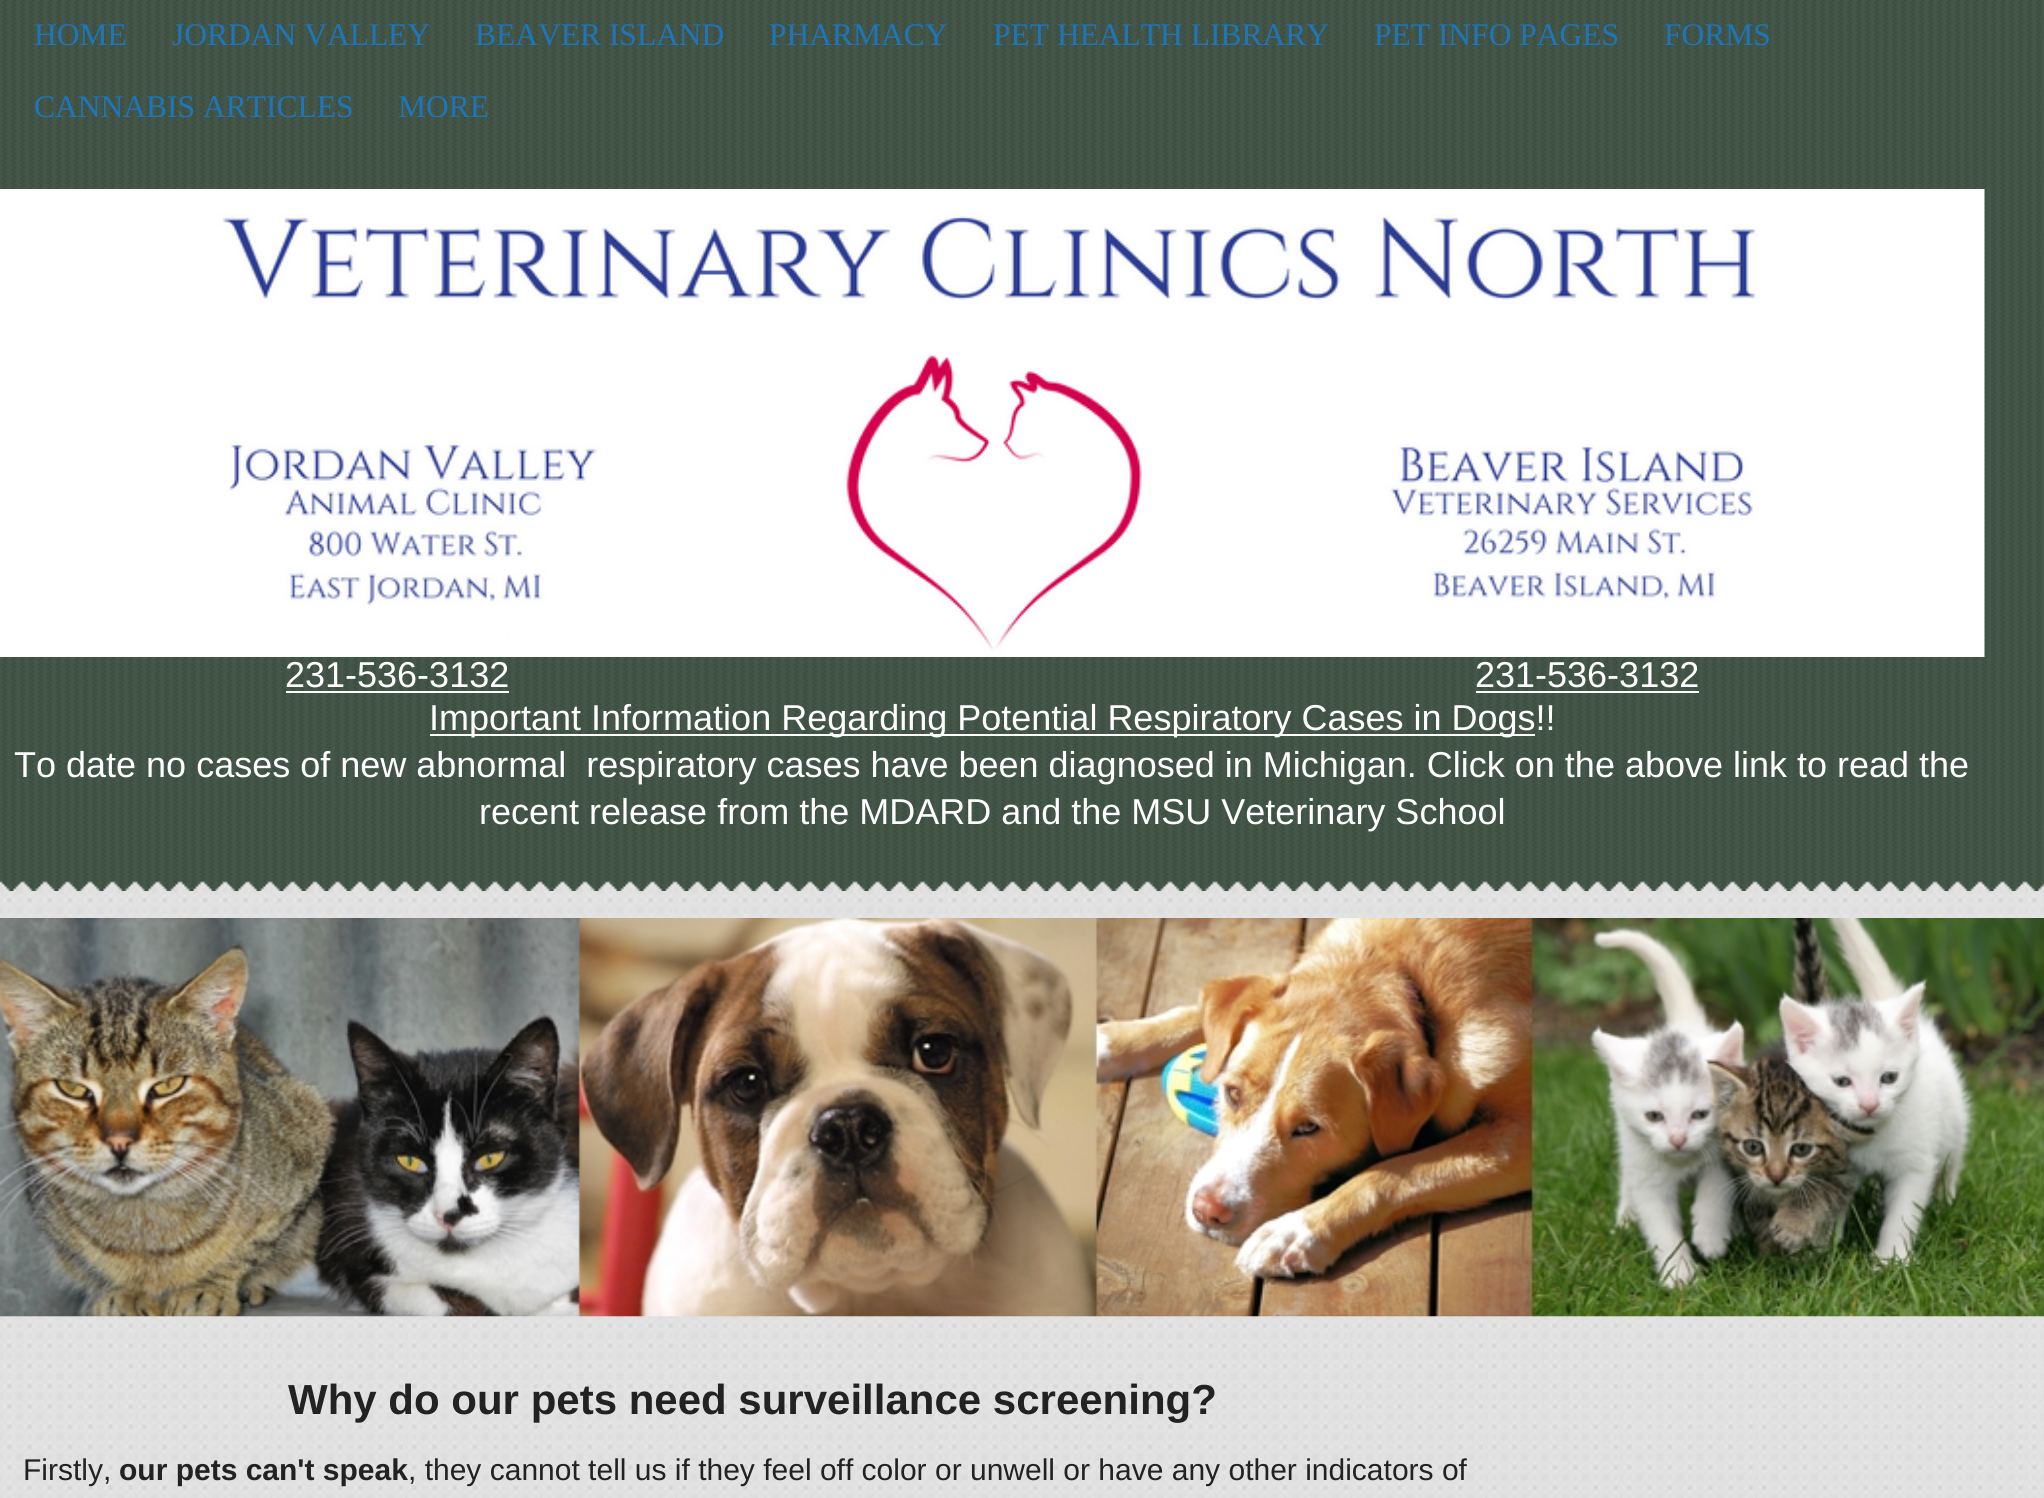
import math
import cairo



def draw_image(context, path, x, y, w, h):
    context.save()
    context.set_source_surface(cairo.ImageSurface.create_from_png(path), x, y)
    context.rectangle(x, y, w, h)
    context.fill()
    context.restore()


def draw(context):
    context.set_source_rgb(1, 1, 1)
    context.paint()
    draw_image(context, "images/1.png", 0, 881, 2044, 617)
    draw_image(context, "images/2.png", 0, 0, 2044, 873)
    draw_image(context, "images/3.png", 0, 189, 1985, 468)
    context.set_source_rgb(1, 1, 1)
    context.rectangle(286, 691, 223, 2)
    context.fill()
    context.rectangle(1476, 691, 223, 2)
    context.fill()
    context.rectangle(430, 734, 1105, 2)
    context.fill()
    draw_image(context, "images/4.png", 0, 873, 2044, 18)
    draw_image(context, "images/5.png", 0, 918, 2044, 399)
    context.select_font_face("Liberation Serif")
    context.set_font_size(31.5)
    context.set_source_rgb(29 / 255, 118 / 255, 187 / 255)
    context.move_to(34, 45)
    context.show_text("HOME")
    context.move_to(172, 45)
    context.show_text("JORDAN VALLEY")
    context.move_to(475, 45)
    context.show_text("BEAVER ISLAND")
    context.move_to(769, 45)
    context.show_text("PHARMACY")
    context.move_to(993, 45)
    context.show_text("PET HEALTH LIBRARY")
    context.move_to(1374, 45)
    context.show_text("PET INFO PAGES")
    context.move_to(1664, 45)
    context.show_text("FORMS")
    context.move_to(34, 117)
    context.show_text("CANNABIS ARTICLES")
    context.move_to(398, 117)
    context.show_text("MORE")
    context.select_font_face("Liberation Sans")
    context.set_font_size(36)
    context.set_source_rgb(1, 1, 1)
    context.move_to(285, 687)
    context.show_text("231-536-3132")
    context.move_to(1475, 687)
    context.show_text("231-536-3132")
    context.move_to(429, 730)
    context.show_text("Important Information Regarding Potential Respiratory Cases in Dogs!!")
    context.move_to(14, 777)
    context.show_text("To date no cases of new abnormal  respiratory cases have been diagnosed in Michigan. Click on the above link to read the")
    context.move_to(479, 824)
    context.show_text("recent release from the MDARD and the MSU Veterinary School")
    context.select_font_face("Liberation Sans", cairo.FontSlant.NORMAL, cairo.FontWeight.BOLD)
    context.set_font_size(42)
    context.set_source_rgb(34 / 255, 34 / 255, 34 / 255)
    context.move_to(288, 1414)
    context.show_text("Why do our pets need surveillance screening?")
    context.select_font_face("Liberation Sans")
    context.set_font_size(30)
    context.move_to(23, 1480)
    context.show_text("Firstly,")
    context.select_font_face("Liberation Sans", cairo.FontSlant.NORMAL, cairo.FontWeight.BOLD)
    context.move_to(119, 1480)
    context.show_text("our pets can't speak")
    context.select_font_face("Liberation Sans")
    context.move_to(408, 1480)
    context.show_text(", they cannot tell us if they feel off color or unwell or have any other indicators of")


surface = cairo.ImageSurface(cairo.Format.RGB24, 2044, 1498)
context = cairo.Context(surface)
options = cairo.FontOptions()
options.set_hint_metrics(cairo.HintMetrics.OFF)
options.set_hint_style(cairo.HintStyle.NONE)
context.set_font_options(options)
context.set_miter_limit(4)
draw(context)
surface.write_to_png("out.png")
